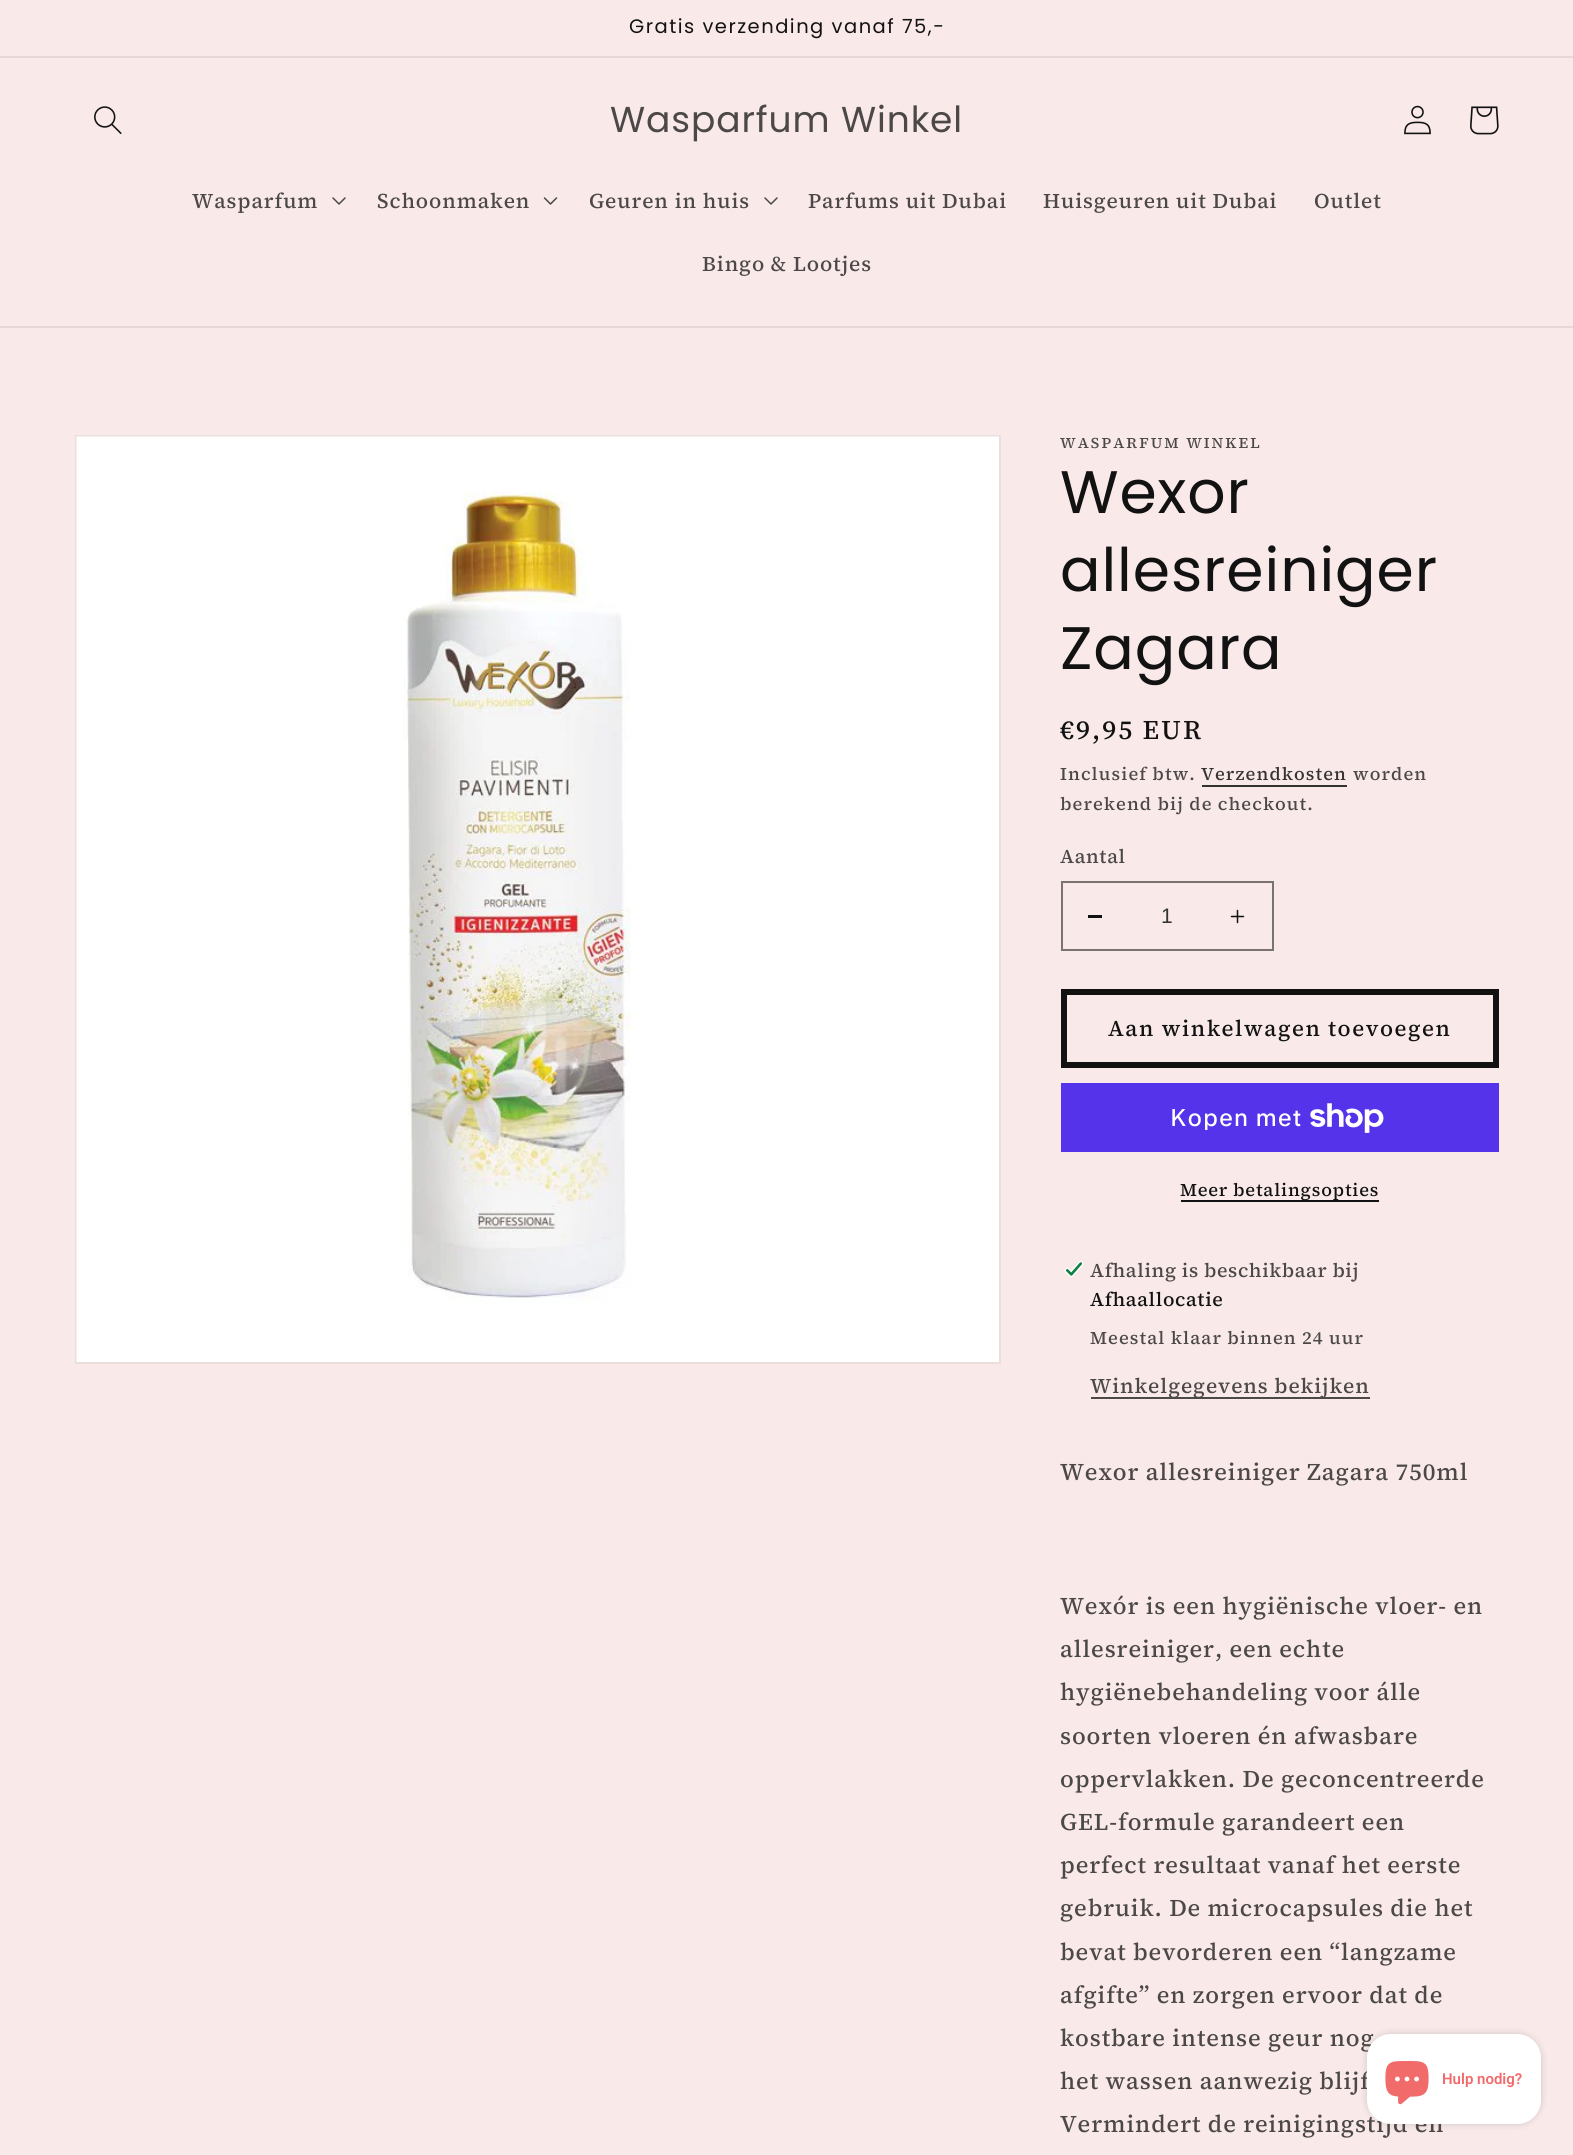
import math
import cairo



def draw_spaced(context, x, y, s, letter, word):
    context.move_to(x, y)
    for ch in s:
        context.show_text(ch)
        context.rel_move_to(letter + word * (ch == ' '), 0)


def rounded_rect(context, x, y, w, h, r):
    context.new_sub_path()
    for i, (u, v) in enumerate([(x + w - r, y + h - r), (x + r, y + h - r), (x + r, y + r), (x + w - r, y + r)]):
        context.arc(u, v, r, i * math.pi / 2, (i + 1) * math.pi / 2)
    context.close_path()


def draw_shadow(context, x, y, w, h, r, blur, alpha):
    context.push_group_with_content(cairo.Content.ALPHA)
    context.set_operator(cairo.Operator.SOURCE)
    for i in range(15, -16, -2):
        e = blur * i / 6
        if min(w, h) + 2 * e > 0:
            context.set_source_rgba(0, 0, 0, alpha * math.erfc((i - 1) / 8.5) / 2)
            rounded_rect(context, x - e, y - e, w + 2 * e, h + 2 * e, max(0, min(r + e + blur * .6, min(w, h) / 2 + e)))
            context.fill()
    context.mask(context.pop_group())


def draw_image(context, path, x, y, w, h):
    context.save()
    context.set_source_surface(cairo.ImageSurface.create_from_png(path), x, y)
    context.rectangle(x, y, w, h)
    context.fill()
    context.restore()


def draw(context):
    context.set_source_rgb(249 / 255, 233 / 255, 233 / 255)
    context.paint()
    context.set_source_rgb(231 / 255, 216 / 255, 216 / 255)
    context.rectangle(0, 56, 1573, 2)
    context.fill()
    context.rectangle(0, 326, 1573, 2)
    context.fill()
    draw_image(context, "images/1.png", 94, 106, 28, 28)
    draw_image(context, "images/2.png", 1404, 105, 27, 30)
    draw_image(context, "images/3.png", 1470, 106, 29, 29)
    draw_image(context, "images/4.png", 332, 197, 14, 8)
    draw_image(context, "images/5.png", 543, 197, 15, 8)
    draw_image(context, "images/4.png", 764, 197, 14, 8)
    context.rectangle(76, 436, 924, 927)
    context.set_source_rgb(237 / 255, 222 / 255, 222 / 255)
    context.stroke()
    draw_image(context, "images/6.png", 76, 436, 923, 926)
    context.set_source_rgb(53 / 255, 50 / 255, 50 / 255)
    context.rectangle(1202, 785, 145, 2)
    context.fill()
    context.set_source_rgb(18 / 255, 18 / 255, 18 / 255)
    context.rectangle(1088, 915, 14, 3)
    context.fill()
    draw_image(context, "images/7.png", 1230, 909, 15, 15)
    context.rectangle(1062, 882, 211, 68)
    context.set_source_rgb(122 / 255, 115 / 255, 115 / 255)
    context.stroke()
    context.rectangle(1064, 992, 432, 73)
    context.set_source_rgb(18 / 255, 18 / 255, 18 / 255)
    context.set_line_width(6)
    context.stroke()
    context.set_source_rgb(84 / 255, 51 / 255, 235 / 255)
    context.rectangle(1061, 1083, 438, 69)
    context.fill()
    draw_image(context, "images/8.png", 1310, 1103, 74, 30)
    context.set_source_rgb(18 / 255, 18 / 255, 18 / 255)
    context.rectangle(1181, 1200, 198, 2)
    context.fill()
    draw_image(context, "images/9.png", 1064, 1261, 20, 16)
    context.set_source_rgb(76 / 255, 72 / 255, 72 / 255)
    context.rectangle(1091, 1397, 279, 2)
    context.fill()
    context.set_source_rgb(0, 0, 0)
    draw_shadow(context, 1367, 2034, 174, 90, 24, 4, 0.15)
    context.select_font_face("Poppins")
    context.set_font_size(19.5)
    context.set_source_rgb(18 / 255, 18 / 255, 18 / 255)
    draw_spaced(context, 629, 33, "Gratis verzending vanaf 75,-", 1.5, 0)
    context.set_font_size(36)
    context.set_source_rgb(76 / 255, 72 / 255, 72 / 255)
    draw_spaced(context, 610, 132, "Wasparfum Winkel", 0.9, 0)
    context.select_font_face("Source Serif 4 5 Medium")
    context.set_font_size(21)
    draw_spaced(context, 192, 208, "Wasparfum", 0.9, 0)
    draw_spaced(context, 377, 208, "Schoonmaken", 0.9, 0)
    draw_spaced(context, 589, 208, "Geuren in huis", 0.9, 0)
    draw_spaced(context, 808, 208, "Parfums uit Dubai", 0.9, 0)
    draw_spaced(context, 1043, 208, "Huisgeuren uit Dubai", 0.9, 0)
    draw_spaced(context, 1314, 208, "Outlet", 0.9, 0)
    draw_spaced(context, 702, 271, "Bingo & Lootjes", 0.9, 0)
    context.select_font_face("Source Serif 4 Medium")
    context.set_font_size(15)
    draw_spaced(context, 1060, 448, "WASPARFUM WINKEL", 2, 0)
    context.select_font_face("Poppins")
    context.set_font_size(60)
    context.set_source_rgb(18 / 255, 18 / 255, 18 / 255)
    draw_spaced(context, 1060, 513, "Wexor", 0.9, 0)
    draw_spaced(context, 1060, 591, "allesreiniger", 0.9, 0)
    draw_spaced(context, 1060, 669, "Zagara", 0.9, 0)
    context.select_font_face("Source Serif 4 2 Medium")
    context.set_font_size(27)
    draw_spaced(context, 1060, 739, "€9,95 EUR", 2, 0)
    context.select_font_face("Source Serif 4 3 Medium")
    context.set_font_size(18)
    context.set_source_rgb(76 / 255, 72 / 255, 72 / 255)
    draw_spaced(context, 1060, 780, "Inclusief btw.", 1.05, 0)
    context.set_source_rgb(53 / 255, 50 / 255, 50 / 255)
    draw_spaced(context, 1201, 780, "Verzendkosten", 1.05, 0)
    context.set_source_rgb(76 / 255, 72 / 255, 72 / 255)
    draw_spaced(context, 1353, 780, "worden", 1.05, 0)
    draw_spaced(context, 1060, 810, "berekend bij de checkout.", 1.05, 0)
    context.select_font_face("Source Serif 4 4 Medium")
    context.set_font_size(19.5)
    draw_spaced(context, 1060, 863, "Aantal", 0.6, 0)
    context.select_font_face("Liberation Sans")
    context.set_font_size(21)
    context.set_source_rgb(53 / 255, 50 / 255, 50 / 255)
    context.move_to(1161, 923)
    context.show_text("1")
    context.select_font_face("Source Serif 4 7 Medium")
    context.set_font_size(22.5)
    context.set_source_rgb(18 / 255, 18 / 255, 18 / 255)
    draw_spaced(context, 1108, 1036, "Aan winkelwagen toevoegen", 1.5, 0)
    context.select_font_face("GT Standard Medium")
    context.set_font_size(24)
    context.set_source_rgb(1, 1, 1)
    draw_spaced(context, 1170, 1126, "Kopen met", 0.9, 0)
    context.select_font_face("Source Serif 4 3 Medium")
    context.set_font_size(18)
    context.set_source_rgb(18 / 255, 18 / 255, 18 / 255)
    draw_spaced(context, 1180, 1196, "Meer betalingsopties", 0.75, 0)
    context.select_font_face("Source Serif 4 4 Medium")
    context.set_font_size(19.5)
    context.set_source_rgb(76 / 255, 72 / 255, 72 / 255)
    draw_spaced(context, 1090, 1277, "Afhaling is beschikbaar bij", 0.6, 0)
    context.set_source_rgb(18 / 255, 18 / 255, 18 / 255)
    draw_spaced(context, 1090, 1306, "Afhaallocatie", 0.6, 0)
    context.select_font_face("Source Serif 4 3 Medium")
    context.set_font_size(18)
    context.set_source_rgb(76 / 255, 72 / 255, 72 / 255)
    draw_spaced(context, 1090, 1344, "Meestal klaar binnen 24 uur", 1.05, 0)
    context.select_font_face("Source Serif 4 5 Medium")
    context.set_font_size(21)
    draw_spaced(context, 1090, 1393, "Winkelgegevens bekijken", 0.9, 0)
    context.select_font_face("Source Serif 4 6 Medium")
    context.set_font_size(24)
    draw_spaced(context, 1060, 1480, "Wexor allesreiniger Zagara 750ml", 0.9, 0)
    draw_spaced(context, 1060, 1614, "Wexór is een hygiënische vloer- en", 0.9, 0)
    draw_spaced(context, 1060, 1657, "allesreiniger, een echte", 0.9, 0)
    draw_spaced(context, 1060, 1700, "hygiënebehandeling voor álle", 0.9, 0)
    draw_spaced(context, 1060, 1744, "soorten vloeren én afwasbare", 0.9, 0)
    draw_spaced(context, 1060, 1787, "oppervlakken. De geconcentreerde", 0.9, 0)
    draw_spaced(context, 1060, 1830, "GEL-formule garandeert een", 0.9, 0)
    draw_spaced(context, 1060, 1873, "perfect resultaat vanaf het eerste", 0.9, 0)
    draw_spaced(context, 1060, 1916, "gebruik. De microcapsules die het", 0.9, 0)
    draw_spaced(context, 1060, 1960, "bevat bevorderen een “langzame", 0.9, 0)
    draw_spaced(context, 1060, 2003, "afgifte” en zorgen ervoor dat de", 0.9, 0)
    draw_spaced(context, 1060, 2046, "kostbare intense geur nog", 0.9, 0)
    draw_spaced(context, 1060, 2089, "het wassen aanwezig blijf", 0.9, 0)
    draw_spaced(context, 1060, 2132, "Vermindert de reinigingstijd en", 0.9, 0)
    context.set_source_rgb(1, 1, 1)
    rounded_rect(context, 1367, 2034, 174, 90, 24)
    context.fill()
    draw_image(context, "images/10.png", 1385, 2061, 44, 44)
    context.select_font_face("Roboto SemiBold")
    context.set_font_size(15)
    context.set_source_rgb(241 / 255, 107 / 255, 107 / 255)
    context.move_to(1442, 2084)
    context.show_text("Hulp nodig?")


surface = cairo.ImageSurface(cairo.Format.RGB24, 1573, 2155)
context = cairo.Context(surface)
options = cairo.FontOptions()
options.set_hint_metrics(cairo.HintMetrics.OFF)
options.set_hint_style(cairo.HintStyle.NONE)
context.set_font_options(options)
context.set_miter_limit(4)
draw(context)
surface.write_to_png("out.png")
